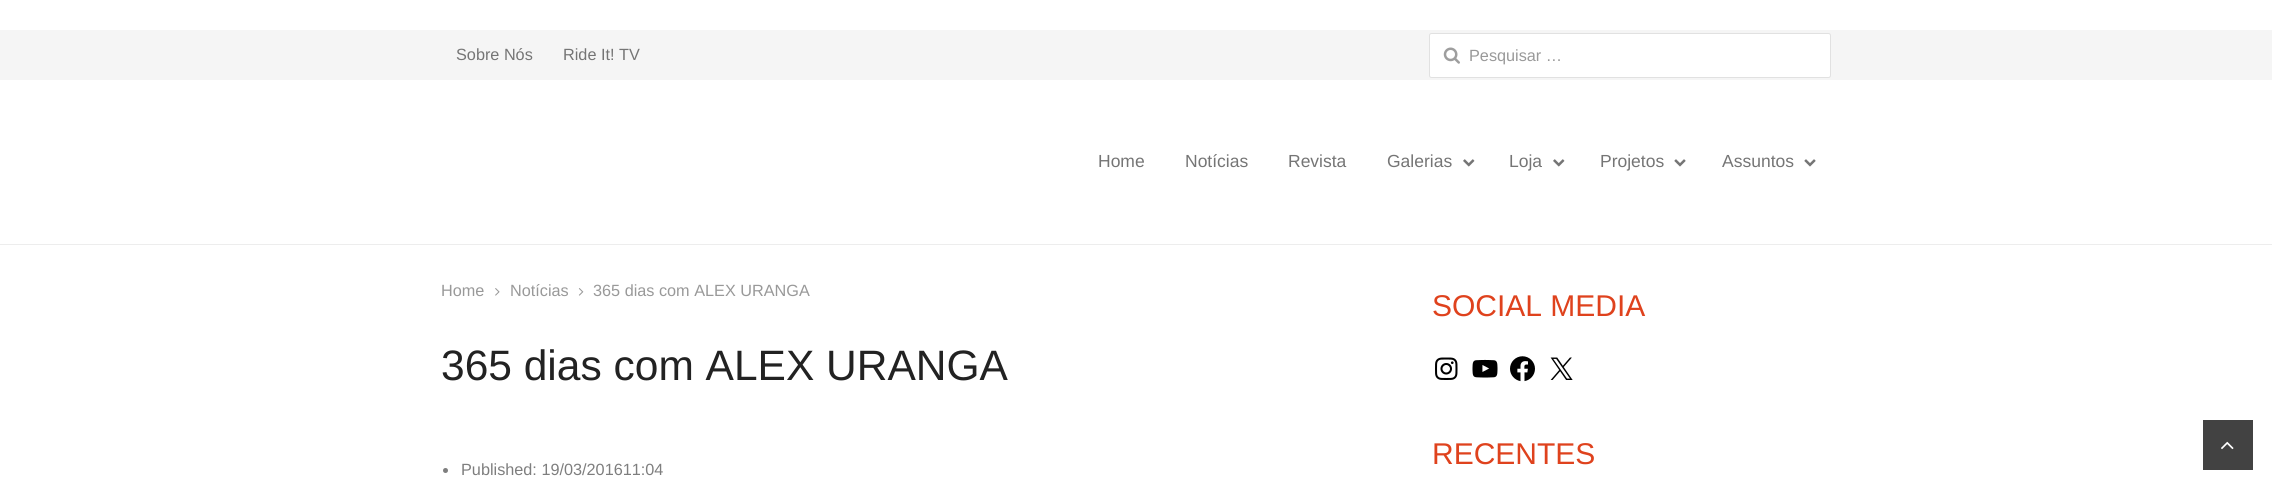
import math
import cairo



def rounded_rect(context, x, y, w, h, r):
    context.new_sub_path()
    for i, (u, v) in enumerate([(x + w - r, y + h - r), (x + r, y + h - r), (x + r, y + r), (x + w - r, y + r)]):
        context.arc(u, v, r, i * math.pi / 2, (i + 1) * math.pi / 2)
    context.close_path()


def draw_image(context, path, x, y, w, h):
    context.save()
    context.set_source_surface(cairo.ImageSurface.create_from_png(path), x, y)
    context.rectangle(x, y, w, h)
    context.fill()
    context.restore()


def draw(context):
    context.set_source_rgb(1, 1, 1)
    context.paint()
    context.set_source_rgb(245 / 255, 245 / 255, 245 / 255)
    context.rectangle(0, 30, 2272, 50)
    context.fill()
    context.set_source_rgb(1, 1, 1)
    rounded_rect(context, 1429, 33, 402, 45, 2.5)
    context.fill()
    rounded_rect(context, 1429.5, 33.5, 401, 44, 2)
    context.set_source_rgba(0, 0, 0, 0.12)
    context.set_line_width(1)
    context.stroke()
    draw_image(context, "images/1.png", 1443, 47, 17, 17)
    context.set_source_rgb(237 / 255, 237 / 255, 237 / 255)
    context.new_path()
    context.move_to(0, 244)
    context.line_to(0, 245)
    context.line_to(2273, 245)
    context.line_to(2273, 81)
    context.line_to(2272, 81)
    context.line_to(2272, 244)
    context.close_path()
    context.fill()
    draw_image(context, "images/2.png", 1463, 159, 12, 8)
    draw_image(context, "images/2.png", 1553, 159, 12, 8)
    draw_image(context, "images/3.png", 1674, 159, 12, 8)
    draw_image(context, "images/3.png", 1804, 159, 12, 8)
    draw_image(context, "images/4.png", 495, 288, 5, 8)
    draw_image(context, "images/5.png", 578, 288, 6, 8)
    context.set_source_rgb(126 / 255, 126 / 255, 126 / 255)
    context.arc(445.5, 470.5, 2.5, 0, 2 * math.pi)
    context.fill()
    draw_image(context, "images/6.png", 1435, 357, 23, 23)
    draw_image(context, "images/7.png", 1472, 359, 26, 19)
    draw_image(context, "images/8.png", 1510, 356, 25, 26)
    draw_image(context, "images/9.png", 1550, 357, 23, 23)
    context.set_source_rgb(66 / 255, 66 / 255, 66 / 255)
    context.rectangle(2203, 420, 50, 50)
    context.fill()
    draw_image(context, "images/10.png", 2221, 441, 13, 9)
    context.select_font_face("Liberation Sans")
    context.set_font_size(16.25)
    context.set_source_rgb(117 / 255, 117 / 255, 117 / 255)
    context.move_to(456, 60)
    context.show_text("Sobre Nós")
    context.move_to(563, 60)
    context.show_text("Ride It! TV")
    context.set_source_rgb(153 / 255, 153 / 255, 153 / 255)
    context.move_to(1469, 61)
    context.show_text("Pesquisar …")
    context.set_font_size(17.5)
    context.set_source_rgb(117 / 255, 117 / 255, 117 / 255)
    context.move_to(1098, 167)
    context.show_text("Home")
    context.move_to(1185, 167)
    context.show_text("Notícias")
    context.move_to(1288, 167)
    context.show_text("Revista")
    context.move_to(1387, 167)
    context.show_text("Galerias")
    context.move_to(1509, 167)
    context.show_text("Loja")
    context.move_to(1600, 167)
    context.show_text("Projetos")
    context.move_to(1722, 167)
    context.show_text("Assuntos")
    context.set_font_size(16.25)
    context.set_source_rgb(153 / 255, 153 / 255, 153 / 255)
    context.move_to(441, 296)
    context.show_text("Home")
    context.move_to(510, 296)
    context.show_text("Notícias")
    context.move_to(593, 296)
    context.show_text("365 dias com ALEX URANGA")
    context.set_font_size(42.5)
    context.set_source_rgb(34 / 255, 34 / 255, 34 / 255)
    context.move_to(441, 380)
    context.show_text("365 dias com ALEX URANGA")
    context.set_font_size(16.25)
    context.set_source_rgb(126 / 255, 126 / 255, 126 / 255)
    context.move_to(461, 475)
    context.show_text("Published: 19/03/201611:04")
    context.set_font_size(30)
    context.set_source_rgb(223 / 255, 66 / 255, 29 / 255)
    context.move_to(1432, 316)
    context.show_text("SOCIAL MEDIA")
    context.move_to(1432, 464)
    context.show_text("RECENTES")


surface = cairo.ImageSurface(cairo.Format.RGB24, 2272, 488)
context = cairo.Context(surface)
options = cairo.FontOptions()
options.set_hint_metrics(cairo.HintMetrics.OFF)
options.set_hint_style(cairo.HintStyle.NONE)
context.set_font_options(options)
context.set_miter_limit(4)
draw(context)
surface.write_to_png("out.png")
